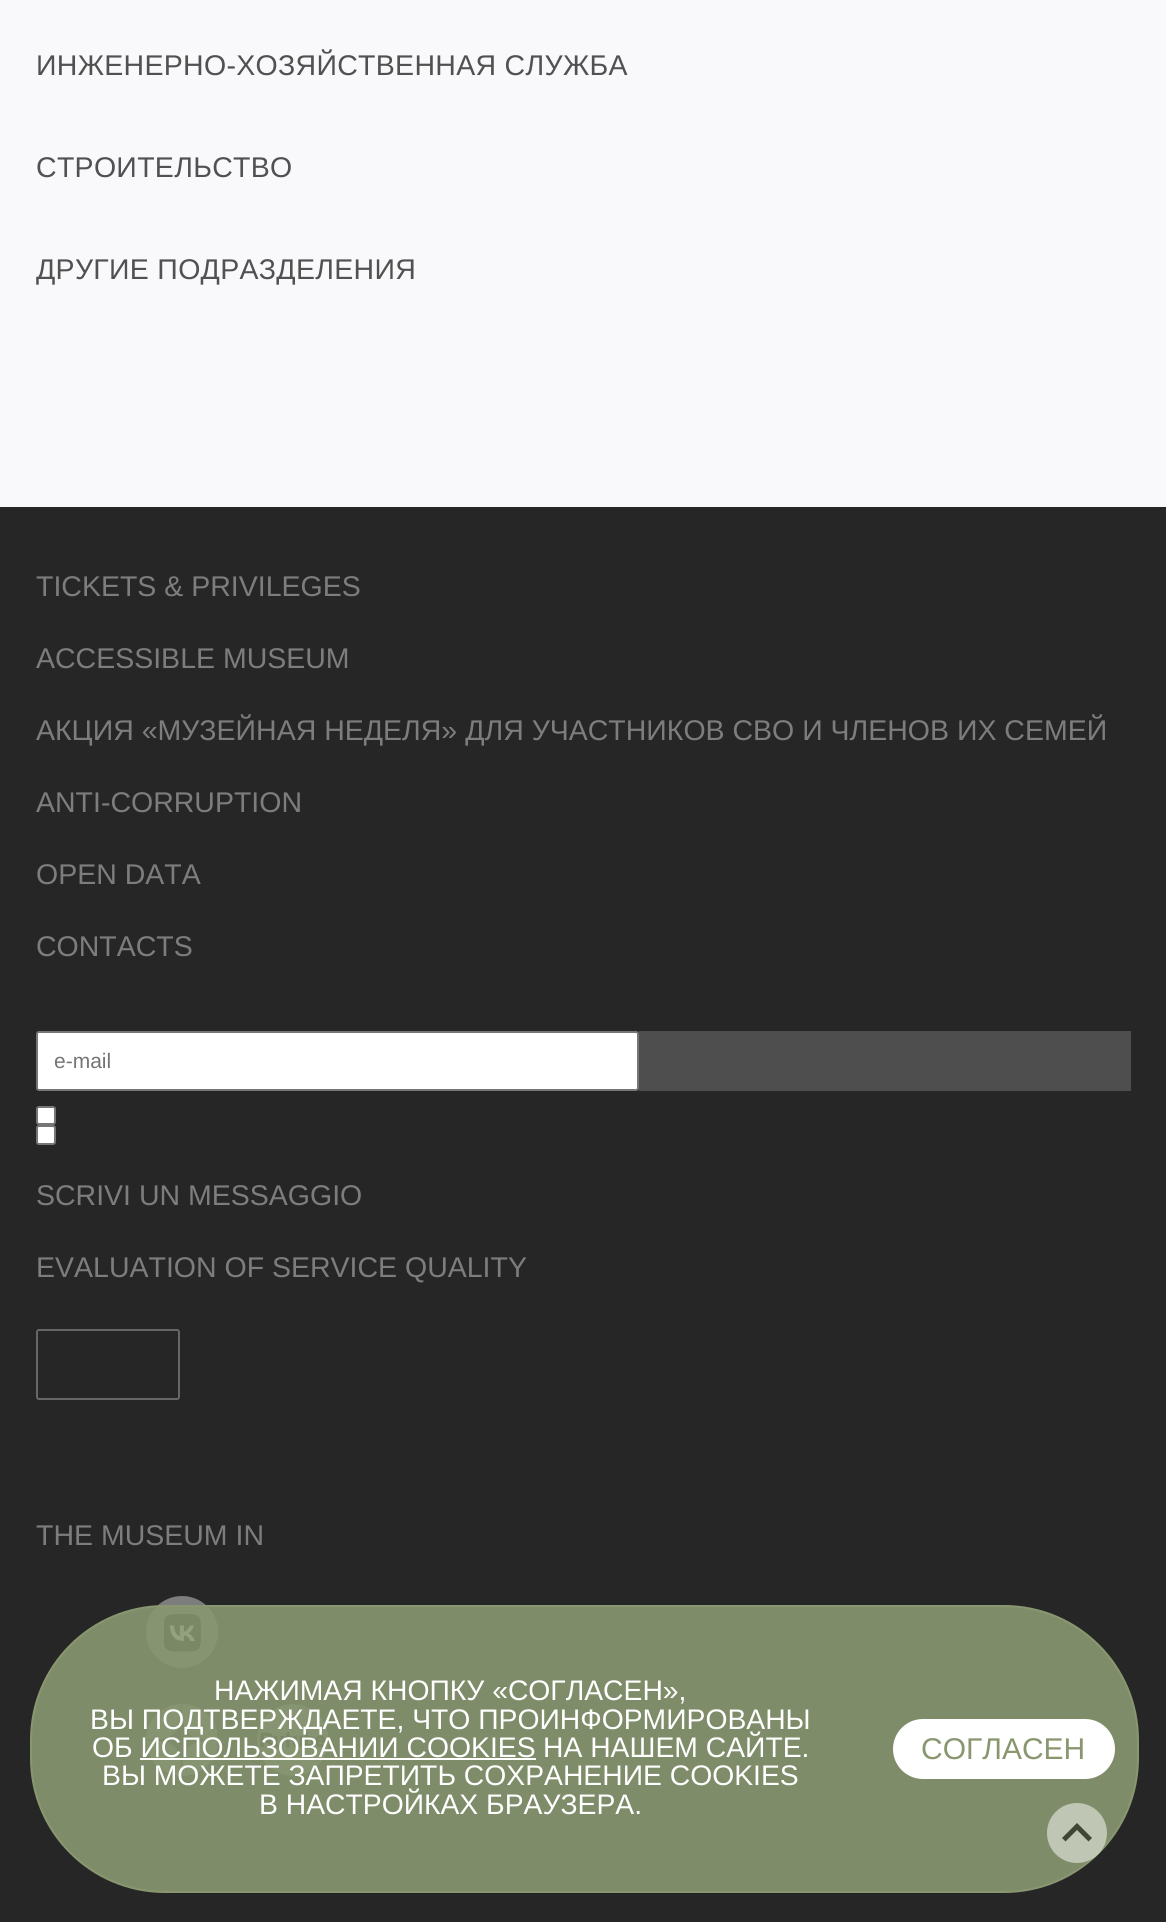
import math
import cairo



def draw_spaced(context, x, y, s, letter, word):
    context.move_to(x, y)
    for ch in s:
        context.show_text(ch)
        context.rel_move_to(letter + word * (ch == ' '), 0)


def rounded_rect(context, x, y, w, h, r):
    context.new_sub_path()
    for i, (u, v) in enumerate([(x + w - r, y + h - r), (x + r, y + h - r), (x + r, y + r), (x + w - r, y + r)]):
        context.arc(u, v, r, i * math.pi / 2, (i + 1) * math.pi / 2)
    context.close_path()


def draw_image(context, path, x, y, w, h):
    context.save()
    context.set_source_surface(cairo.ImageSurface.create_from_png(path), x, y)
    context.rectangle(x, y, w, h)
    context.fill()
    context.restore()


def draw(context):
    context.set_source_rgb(249 / 255, 249 / 255, 251 / 255)
    context.paint()
    context.set_source_rgb(38 / 255, 38 / 255, 38 / 255)
    context.rectangle(0, 507, 1166, 1415)
    context.fill()
    context.set_source_rgb(1, 1, 1)
    rounded_rect(context, 37, 1032, 601, 58, 2)
    context.fill_preserve()
    context.set_source_rgb(118 / 255, 118 / 255, 118 / 255)
    context.stroke()
    context.set_source_rgb(78 / 255, 78 / 255, 78 / 255)
    context.rectangle(639, 1031, 492, 60)
    context.fill()
    context.set_source_rgb(1, 1, 1)
    rounded_rect(context, 37, 1107, 18, 17, 2)
    context.fill_preserve()
    context.set_source_rgb(118 / 255, 118 / 255, 118 / 255)
    context.stroke()
    context.set_source_rgb(1, 1, 1)
    rounded_rect(context, 37, 1126, 18, 18, 2)
    context.fill_preserve()
    context.set_source_rgb(118 / 255, 118 / 255, 118 / 255)
    context.stroke()
    rounded_rect(context, 37, 1330, 142, 69, 2)
    context.set_source_rgb(103 / 255, 103 / 255, 103 / 255)
    context.stroke()
    context.set_source_rgb(125 / 255, 125 / 255, 125 / 255)
    context.arc(182, 1632, 36, 0, 2 * math.pi)
    context.fill()
    draw_image(context, "images/1.png", 164, 1614, 37, 38)
    draw_image(context, "images/2.png", 146, 1704, 72, 72)
    draw_image(context, "images/3.png", 257, 1704, 72, 72)
    context.set_source_rgba(137 / 255, 151 / 255, 112 / 255, 0.9)
    rounded_rect(context, 31, 1606, 1107, 286, 134)
    context.fill_preserve()
    context.set_source_rgb(137 / 255, 151 / 255, 112 / 255)
    context.stroke()
    context.set_source_rgb(1, 1, 1)
    context.rectangle(140, 1758, 396, 2)
    context.fill()
    rounded_rect(context, 893, 1719, 222, 60, 30)
    context.fill()
    context.set_source_rgba(1, 1, 1, 0.5)
    context.arc(1077, 1833, 30, 0, 2 * math.pi)
    context.fill()
    context.set_source_rgb(64 / 255, 70 / 255, 52 / 255)
    context.new_path()
    context.move_to(1065.5, 1841.5)
    context.line_to(1077, 1830)
    context.line_to(1088.5, 1841.5)
    context.line_to(1092, 1838)
    context.line_to(1077, 1823)
    context.line_to(1062, 1838)
    context.close_path()
    context.fill()
    context.select_font_face("Liberation Sans")
    context.set_font_size(28.5)
    context.set_source_rgb(81 / 255, 81 / 255, 81 / 255)
    draw_spaced(context, 36, 75, "ИНЖЕНЕРНО-ХОЗЯЙСТВЕННАЯ СЛУЖБА", 0.3, 0)
    draw_spaced(context, 36, 177, "СТРОИТЕЛЬСТВО", 0.3, 0)
    draw_spaced(context, 36, 279, "ДРУГИЕ ПОДРАЗДЕЛЕНИЯ", 0.3, 0)
    context.set_source_rgb(125 / 255, 125 / 255, 125 / 255)
    context.move_to(36, 596)
    context.show_text("TICKETS & PRIVILEGES")
    context.move_to(36, 668)
    context.show_text("ACCESSIBLE MUSEUM")
    context.move_to(36, 740)
    context.show_text("АКЦИЯ «МУЗЕЙНАЯ НЕДЕЛЯ» ДЛЯ УЧАСТНИКОВ СВО И ЧЛЕНОВ ИХ СЕМЕЙ")
    context.move_to(36, 812)
    context.show_text("ANTI-CORRUPTION")
    context.move_to(36, 884)
    context.show_text("OPEN DATA")
    context.move_to(36, 956)
    context.show_text("CONTACTS")
    context.set_font_size(21)
    context.set_source_rgb(117 / 255, 117 / 255, 117 / 255)
    context.move_to(54, 1068)
    context.show_text("e-mail")
    context.set_font_size(28.5)
    context.set_source_rgb(125 / 255, 125 / 255, 125 / 255)
    context.move_to(36, 1205)
    context.show_text("SCRIVI UN MESSAGGIO")
    context.move_to(36, 1277)
    context.show_text("EVALUATION OF SERVICE QUALITY")
    context.move_to(36, 1545)
    context.show_text("THE MUSEUM IN")
    context.set_font_size(28.3)
    context.set_source_rgb(1, 1, 1)
    context.move_to(214, 1700)
    context.show_text("НАЖИМАЯ КНОПКУ «СОГЛАСЕН»,")
    context.move_to(90, 1729)
    context.show_text("ВЫ ПОДТВЕРЖДАЕТЕ, ЧТО ПРОИНФОРМИРОВАНЫ")
    context.move_to(92, 1757)
    context.show_text("ОБ ИСПОЛЬЗОВАНИИ COOKIES")
    context.move_to(543, 1757)
    context.show_text("НА НАШЕМ САЙТЕ.")
    context.move_to(102, 1785)
    context.show_text("ВЫ МОЖЕТЕ ЗАПРЕТИТЬ СОХРАНЕНИЕ COOKIES")
    context.move_to(259, 1814)
    context.show_text("В НАСТРОЙКАХ БРАУЗЕРА.")
    context.set_font_size(30)
    context.set_source_rgb(137 / 255, 151 / 255, 112 / 255)
    context.move_to(921, 1759)
    context.show_text("СОГЛАСЕН")


surface = cairo.ImageSurface(cairo.Format.RGB24, 1166, 1922)
context = cairo.Context(surface)
options = cairo.FontOptions()
options.set_hint_metrics(cairo.HintMetrics.OFF)
options.set_hint_style(cairo.HintStyle.NONE)
context.set_font_options(options)
context.set_miter_limit(4)
draw(context)
surface.write_to_png("out.png")
